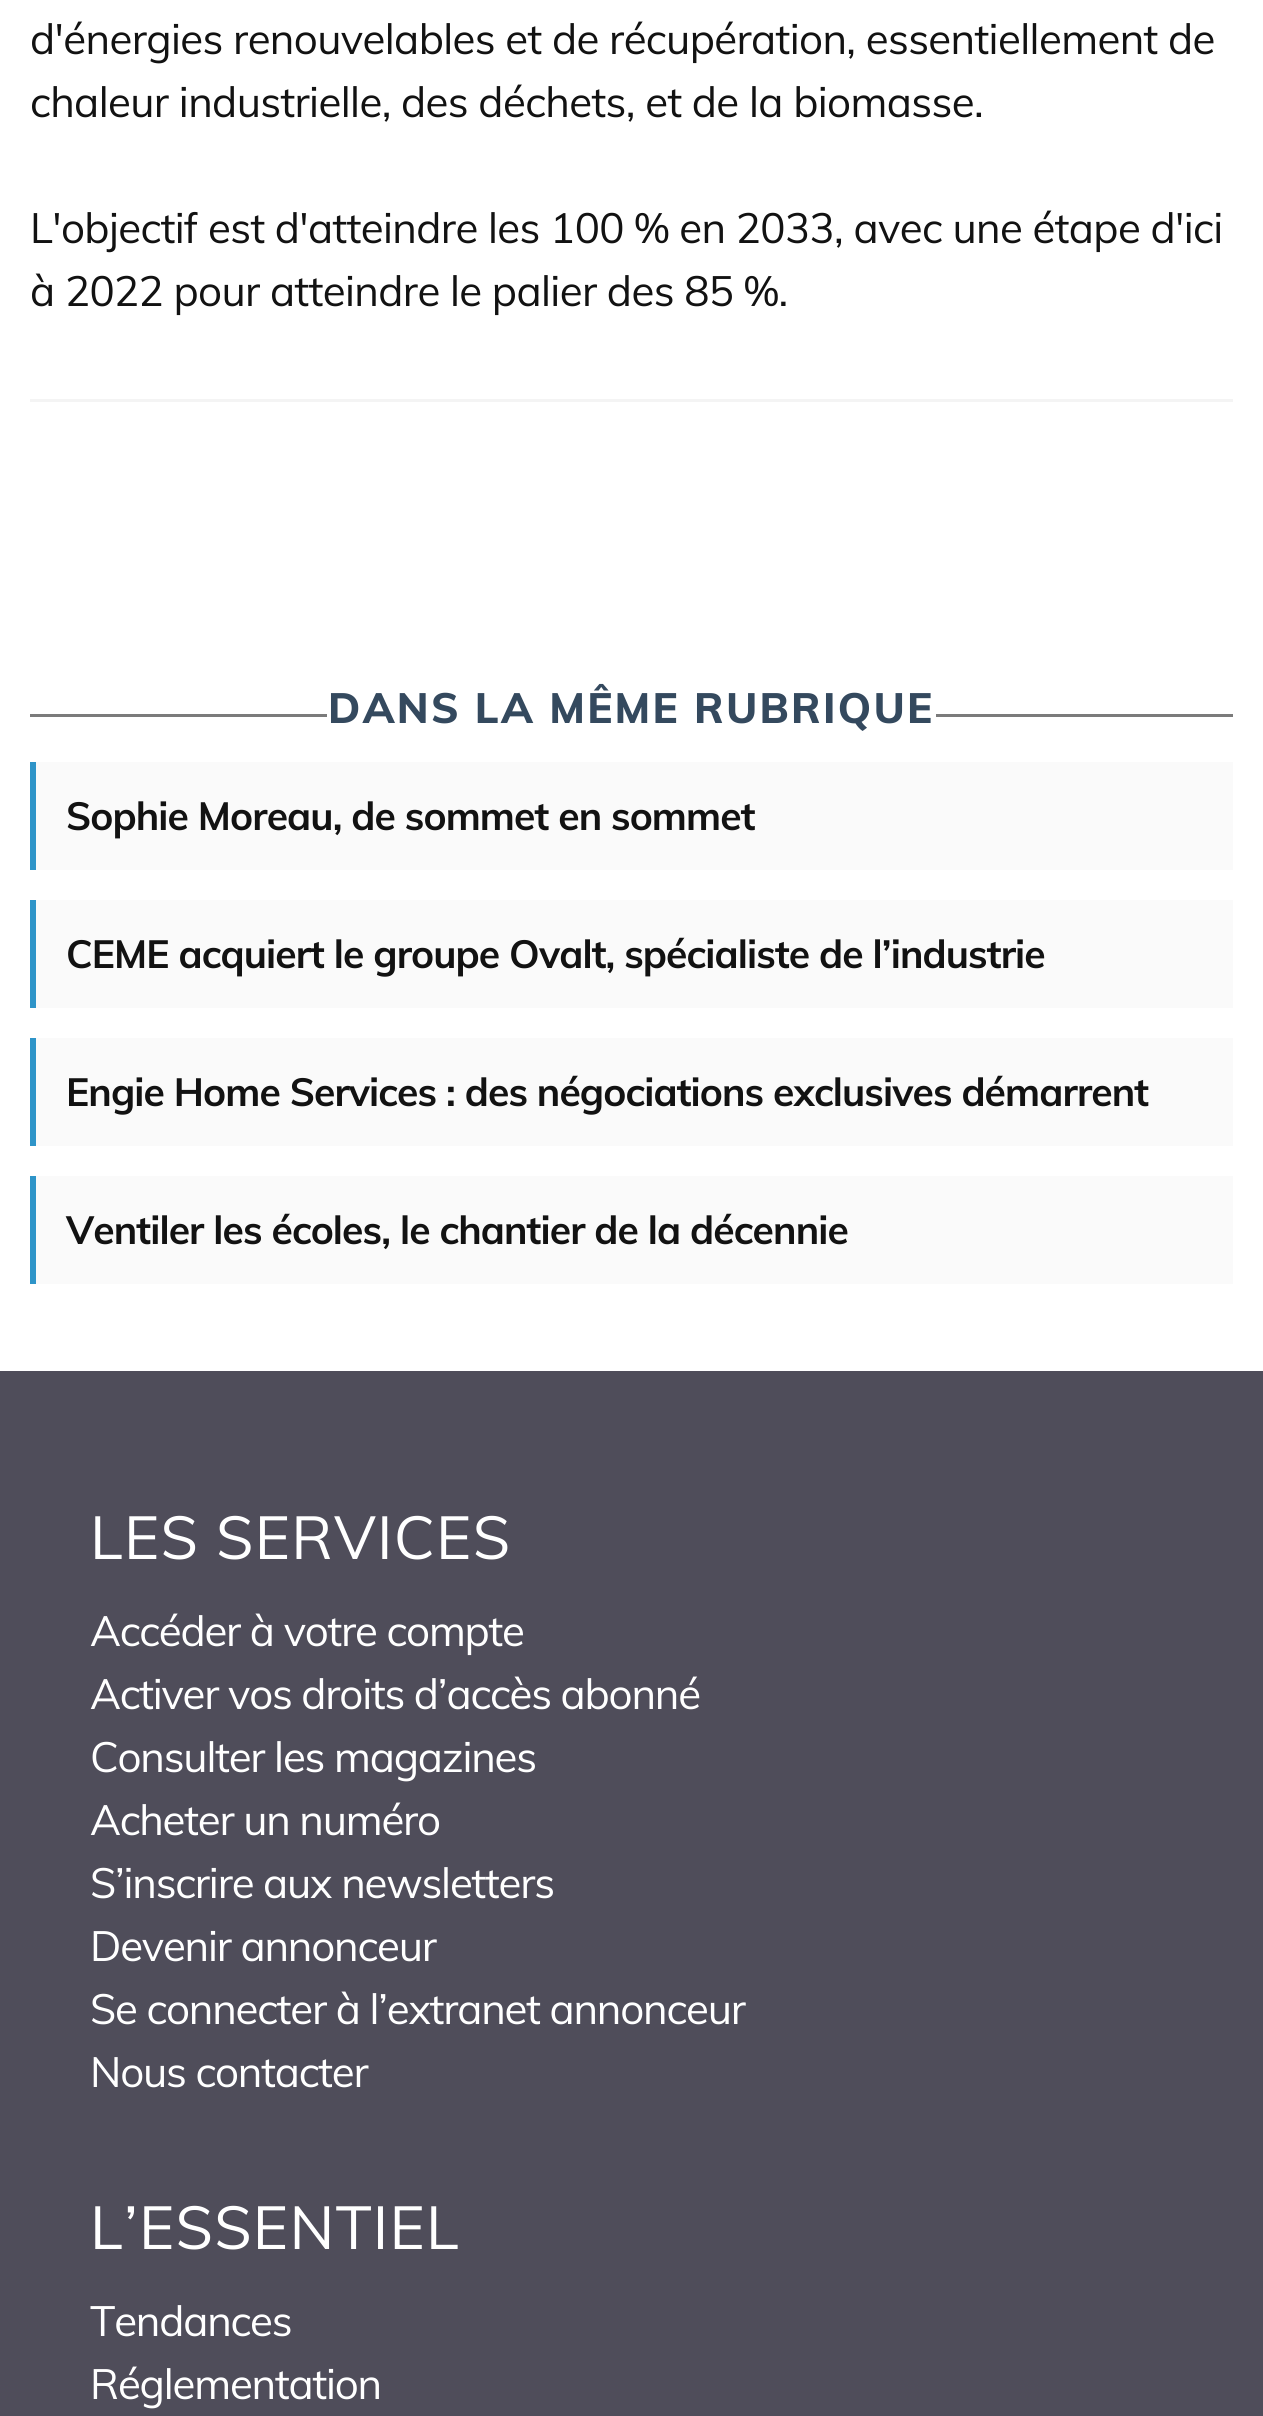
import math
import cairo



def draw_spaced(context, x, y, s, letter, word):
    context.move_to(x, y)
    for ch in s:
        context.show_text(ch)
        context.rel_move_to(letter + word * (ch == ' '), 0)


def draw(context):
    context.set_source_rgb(1, 1, 1)
    context.paint()
    context.set_source_rgb(244 / 255, 244 / 255, 244 / 255)
    context.rectangle(30, 399, 1203, 3)
    context.fill()
    context.set_source_rgb(123 / 255, 123 / 255, 123 / 255)
    context.rectangle(30, 714, 1203, 3)
    context.fill()
    context.set_source_rgb(1, 1, 1)
    context.rectangle(327, 714, 609, 3)
    context.fill()
    context.set_source_rgb(250 / 255, 250 / 255, 250 / 255)
    context.rectangle(36, 762, 1197, 108)
    context.fill()
    context.set_source_rgb(46 / 255, 148 / 255, 200 / 255)
    context.rectangle(30, 762, 6, 108)
    context.fill()
    context.set_source_rgb(250 / 255, 250 / 255, 250 / 255)
    context.rectangle(36, 900, 1197, 108)
    context.fill()
    context.set_source_rgb(46 / 255, 148 / 255, 200 / 255)
    context.rectangle(30, 900, 6, 108)
    context.fill()
    context.set_source_rgb(250 / 255, 250 / 255, 250 / 255)
    context.rectangle(36, 1038, 1197, 108)
    context.fill()
    context.set_source_rgb(46 / 255, 148 / 255, 200 / 255)
    context.rectangle(30, 1038, 6, 108)
    context.fill()
    context.set_source_rgb(250 / 255, 250 / 255, 250 / 255)
    context.rectangle(36, 1176, 1197, 108)
    context.fill()
    context.set_source_rgb(46 / 255, 148 / 255, 200 / 255)
    context.rectangle(30, 1176, 6, 108)
    context.fill()
    context.set_source_rgb(79 / 255, 77 / 255, 90 / 255)
    context.rectangle(0, 1371, 1263, 1045)
    context.fill()
    context.select_font_face("Muli")
    context.set_font_size(42)
    context.set_source_rgb(18 / 255, 18 / 255, 18 / 255)
    draw_spaced(context, 30, 54, "d'énergies renouvelables et de récupération, essentiellement de", -0.63, 0)
    draw_spaced(context, 30, 117, "chaleur industrielle, des déchets, et de la biomasse.", -0.63, 0)
    draw_spaced(context, 30, 243, "L'objectif est d'atteindre les 100 % en 2033, avec une étape d'ici", -0.63, 0)
    draw_spaced(context, 30, 306, "à 2022 pour atteindre le palier des 85 %.", -0.63, 0)
    context.select_font_face("Muli ExtraBold")
    context.set_source_rgb(52 / 255, 73 / 255, 94 / 255)
    draw_spaced(context, 328, 723, "DANS LA MÊME RUBRIQUE", 2.25, 0)
    context.select_font_face("Muli", cairo.FontSlant.NORMAL, cairo.FontWeight.BOLD)
    context.set_font_size(39)
    context.set_source_rgb(18 / 255, 18 / 255, 18 / 255)
    draw_spaced(context, 66, 830, "Sophie Moreau, de sommet en sommet", -0.9, 0)
    draw_spaced(context, 66, 968, "CEME acquiert le groupe Ovalt, spécialiste de l’industrie", -0.9, 0)
    draw_spaced(context, 66, 1106, "Engie Home Services : des négociations exclusives démarrent", -0.9, 0)
    draw_spaced(context, 66, 1244, "Ventiler les écoles, le chantier de la décennie", -0.9, 0)
    context.select_font_face("Muli")
    context.set_font_size(60)
    context.set_source_rgb(1, 1, 1)
    draw_spaced(context, 90, 1559, "LES SERVICES", 1.25, 0)
    context.set_font_size(42)
    draw_spaced(context, 90, 1646, "Accéder à votre compte", -1.2, 0)
    draw_spaced(context, 90, 1709, "Activer vos droits d’accès abonné", -1.2, 0)
    draw_spaced(context, 90, 1772, "Consulter les magazines", -1.2, 0)
    draw_spaced(context, 90, 1835, "Acheter un numéro", -1.2, 0)
    draw_spaced(context, 90, 1898, "S’inscrire aux newsletters", -1.2, 0)
    draw_spaced(context, 90, 1961, "Devenir annonceur", -1.2, 0)
    draw_spaced(context, 90, 2024, "Se connecter à l’extranet annonceur", -1.2, 0)
    draw_spaced(context, 90, 2087, "Nous contacter", -1.2, 0)
    context.set_font_size(60)
    draw_spaced(context, 90, 2249, "L’ESSENTIEL", 1.25, 0)
    context.set_font_size(42)
    draw_spaced(context, 90, 2336, "Tendances", -1.2, 0)
    draw_spaced(context, 90, 2399, "Réglementation", -1.2, 0)


surface = cairo.ImageSurface(cairo.Format.RGB24, 1263, 2416)
context = cairo.Context(surface)
options = cairo.FontOptions()
options.set_hint_metrics(cairo.HintMetrics.OFF)
options.set_hint_style(cairo.HintStyle.NONE)
context.set_font_options(options)
context.set_miter_limit(4)
draw(context)
surface.write_to_png("out.png")
